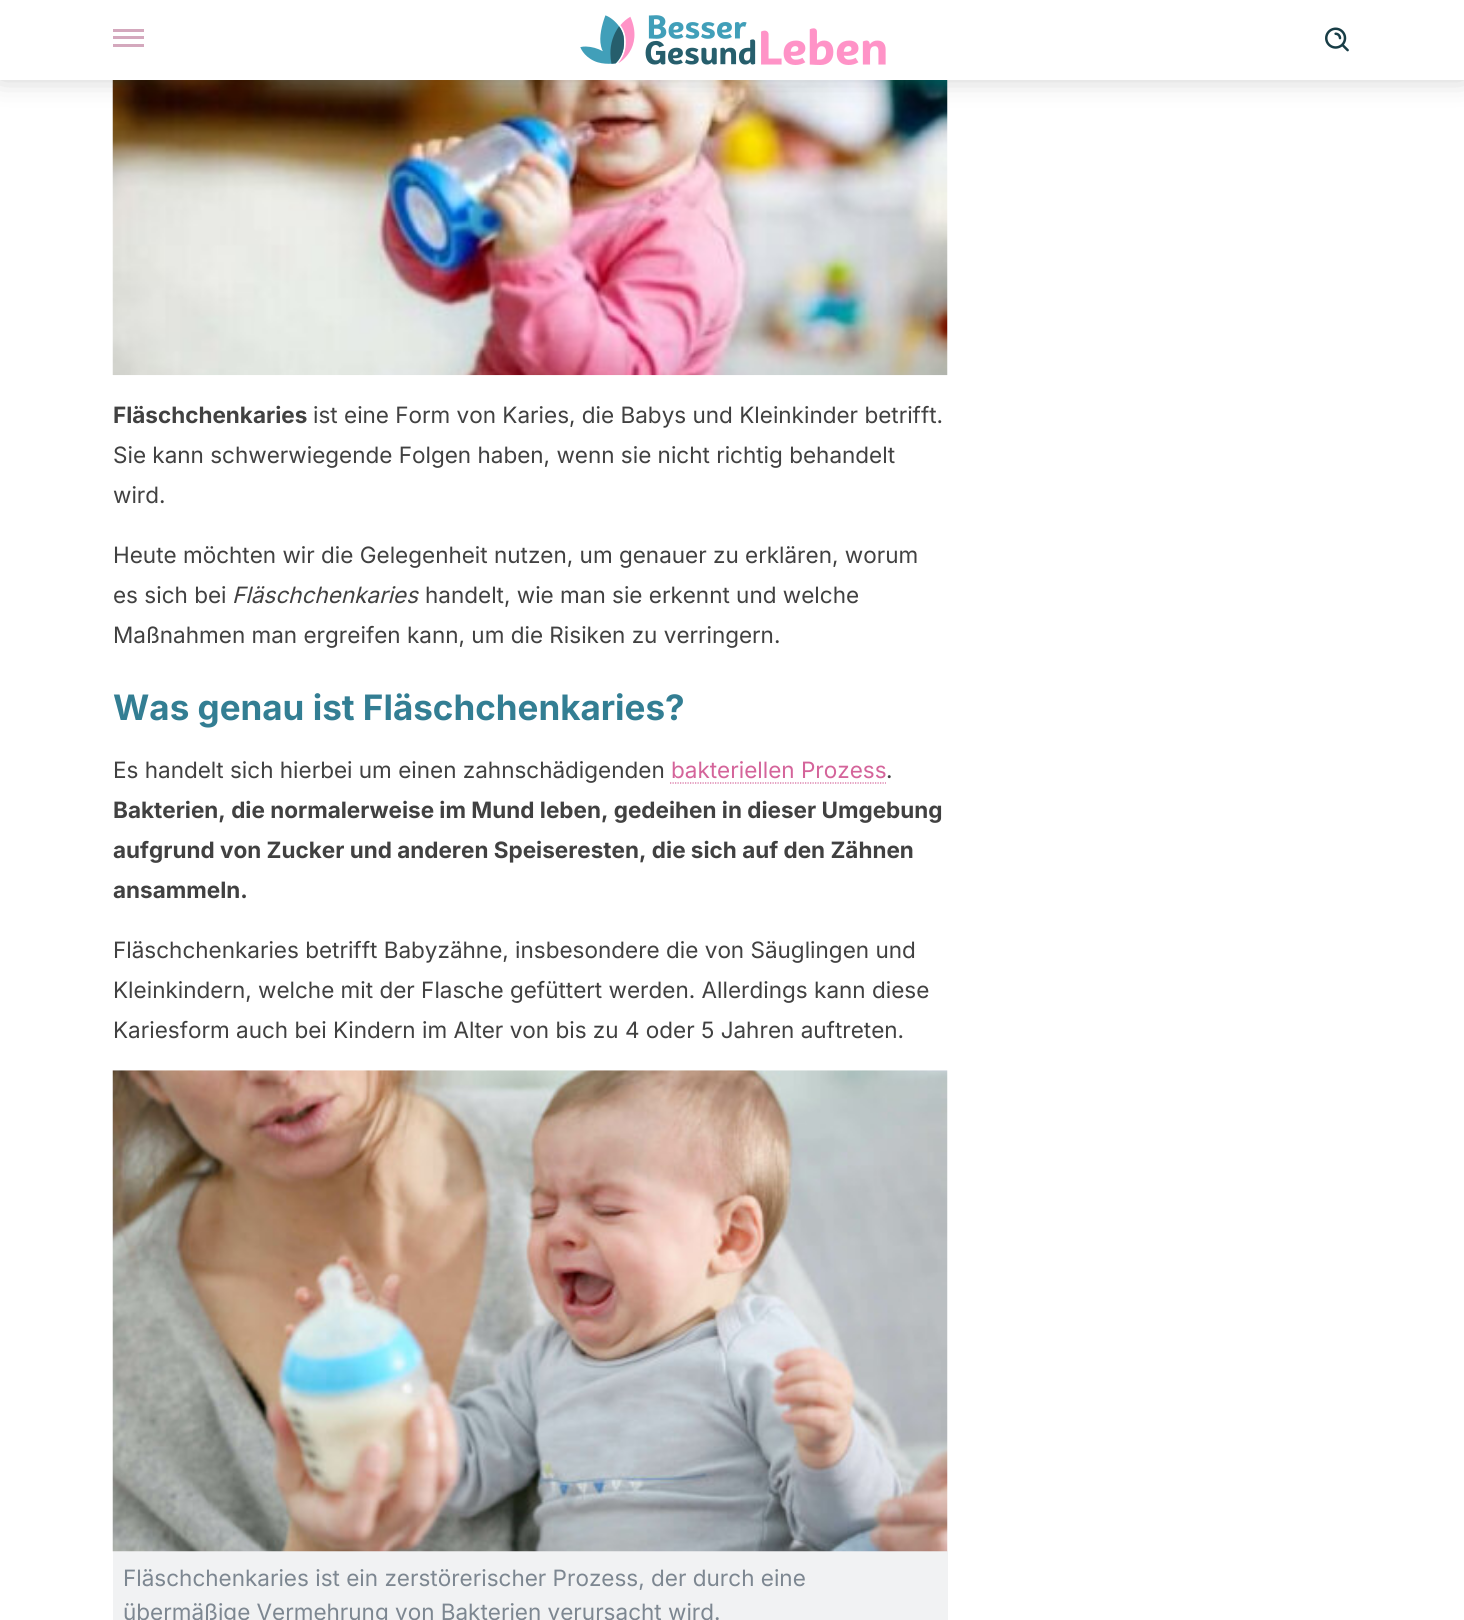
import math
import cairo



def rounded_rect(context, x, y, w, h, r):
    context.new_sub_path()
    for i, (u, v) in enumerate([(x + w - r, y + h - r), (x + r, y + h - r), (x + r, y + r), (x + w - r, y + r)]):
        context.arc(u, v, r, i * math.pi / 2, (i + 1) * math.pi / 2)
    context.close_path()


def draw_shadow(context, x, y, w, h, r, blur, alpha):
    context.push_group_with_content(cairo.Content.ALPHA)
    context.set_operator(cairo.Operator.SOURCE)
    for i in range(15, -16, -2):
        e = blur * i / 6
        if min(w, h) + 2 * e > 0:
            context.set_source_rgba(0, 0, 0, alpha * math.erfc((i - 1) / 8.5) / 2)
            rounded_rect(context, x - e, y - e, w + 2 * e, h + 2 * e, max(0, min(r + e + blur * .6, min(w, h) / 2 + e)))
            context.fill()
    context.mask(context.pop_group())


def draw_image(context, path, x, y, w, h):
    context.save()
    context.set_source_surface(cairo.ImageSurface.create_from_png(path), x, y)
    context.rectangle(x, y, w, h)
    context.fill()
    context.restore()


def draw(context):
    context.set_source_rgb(1, 1, 1)
    context.paint()
    draw_image(context, "images/3.png", 112, 80, 836, 296)
    context.set_source_rgb(0, 0, 0)
    draw_shadow(context, 0, -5, 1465, 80, 0, 15, 0.25)
    context.set_source_rgb(1, 1, 1)
    context.rectangle(0, 0, 1464, 80)
    context.fill()
    context.set_source_rgb(212 / 255, 168 / 255, 189 / 255)
    context.rectangle(113, 29, 31, 3)
    context.fill()
    context.rectangle(113, 36, 31, 3)
    context.fill()
    context.rectangle(113, 44, 31, 3)
    context.fill()
    draw_image(context, "images/1.png", 580, 15, 306, 50)
    draw_image(context, "images/2.png", 1325, 27, 24, 25)
    context.new_path()
    context.move_to(670, 783)
    context.line_to(886, 783)
    context.set_source_rgb(212 / 255, 100 / 255, 154 / 255)
    context.set_line_width(1.2)
    context.set_dash([1.25, 1.25])
    context.stroke()
    context.set_source_rgb(241 / 255, 242 / 255, 243 / 255)
    context.rectangle(113, 1551, 835, 69)
    context.fill()
    draw_image(context, "images/4.png", 112, 1070, 836, 482)
    context.select_font_face("Inter", cairo.FontSlant.NORMAL, cairo.FontWeight.BOLD)
    context.set_font_size(22.5)
    context.set_source_rgb(65 / 255, 65 / 255, 65 / 255)
    context.move_to(113, 423)
    context.show_text("Fläschchenkaries")
    context.select_font_face("Inter")
    context.move_to(313, 423)
    context.show_text("ist eine Form von Karies, die Babys und Kleinkinder betrifft.")
    context.move_to(113, 463)
    context.show_text("Sie kann schwerwiegende Folgen haben, wenn sie nicht richtig behandelt")
    context.move_to(113, 503)
    context.show_text("wird.")
    context.move_to(113, 563)
    context.show_text("Heute möchten wir die Gelegenheit nutzen, um genauer zu erklären, worum")
    context.move_to(113, 603)
    context.show_text("es sich bei")
    context.select_font_face("Inter", cairo.FontSlant.ITALIC)
    context.move_to(232, 603)
    context.show_text("Fläschchenkaries")
    context.select_font_face("Inter")
    context.move_to(425, 603)
    context.show_text("handelt, wie man sie erkennt und welche")
    context.move_to(113, 643)
    context.show_text("Maßnahmen man ergreifen kann, um die Risiken zu verringern.")
    context.select_font_face("Inter", cairo.FontSlant.NORMAL, cairo.FontWeight.BOLD)
    context.set_font_size(35)
    context.set_source_rgb(51 / 255, 126 / 255, 147 / 255)
    context.move_to(113, 720)
    context.show_text("Was genau ist Fläschchenkaries?")
    context.select_font_face("Inter")
    context.set_font_size(22.5)
    context.set_source_rgb(65 / 255, 65 / 255, 65 / 255)
    context.move_to(113, 778)
    context.show_text("Es handelt sich hierbei um einen zahnschädigenden")
    context.set_source_rgb(212 / 255, 100 / 255, 154 / 255)
    context.move_to(671, 778)
    context.show_text("bakteriellen Prozess")
    context.set_source_rgb(65 / 255, 65 / 255, 65 / 255)
    context.move_to(886, 778)
    context.show_text(".")
    context.select_font_face("Inter", cairo.FontSlant.NORMAL, cairo.FontWeight.BOLD)
    context.move_to(113, 818)
    context.show_text("Bakterien, die normalerweise im Mund leben, gedeihen in dieser Umgebung")
    context.move_to(113, 858)
    context.show_text("aufgrund von Zucker und anderen Speiseresten, die sich auf den Zähnen")
    context.move_to(113, 898)
    context.show_text("ansammeln.")
    context.select_font_face("Inter")
    context.move_to(113, 958)
    context.show_text("Fläschchenkaries betrifft Babyzähne, insbesondere die von Säuglingen und")
    context.move_to(113, 998)
    context.show_text("Kleinkindern, welche mit der Flasche gefüttert werden. Allerdings kann diese")
    context.move_to(113, 1038)
    context.show_text("Kariesform auch bei Kindern im Alter von bis zu 4 oder 5 Jahren auftreten.")
    context.set_source_rgb(125 / 255, 135 / 255, 145 / 255)
    context.move_to(123, 1586)
    context.show_text("Fläschchenkaries ist ein zerstörerischer Prozess, der durch eine")
    context.move_to(123, 1620)
    context.show_text("übermäßige Vermehrung von Bakterien verursacht wird.")


surface = cairo.ImageSurface(cairo.Format.RGB24, 1464, 1620)
context = cairo.Context(surface)
options = cairo.FontOptions()
options.set_hint_metrics(cairo.HintMetrics.OFF)
options.set_hint_style(cairo.HintStyle.NONE)
context.set_font_options(options)
context.set_miter_limit(4)
draw(context)
surface.write_to_png("out.png")
